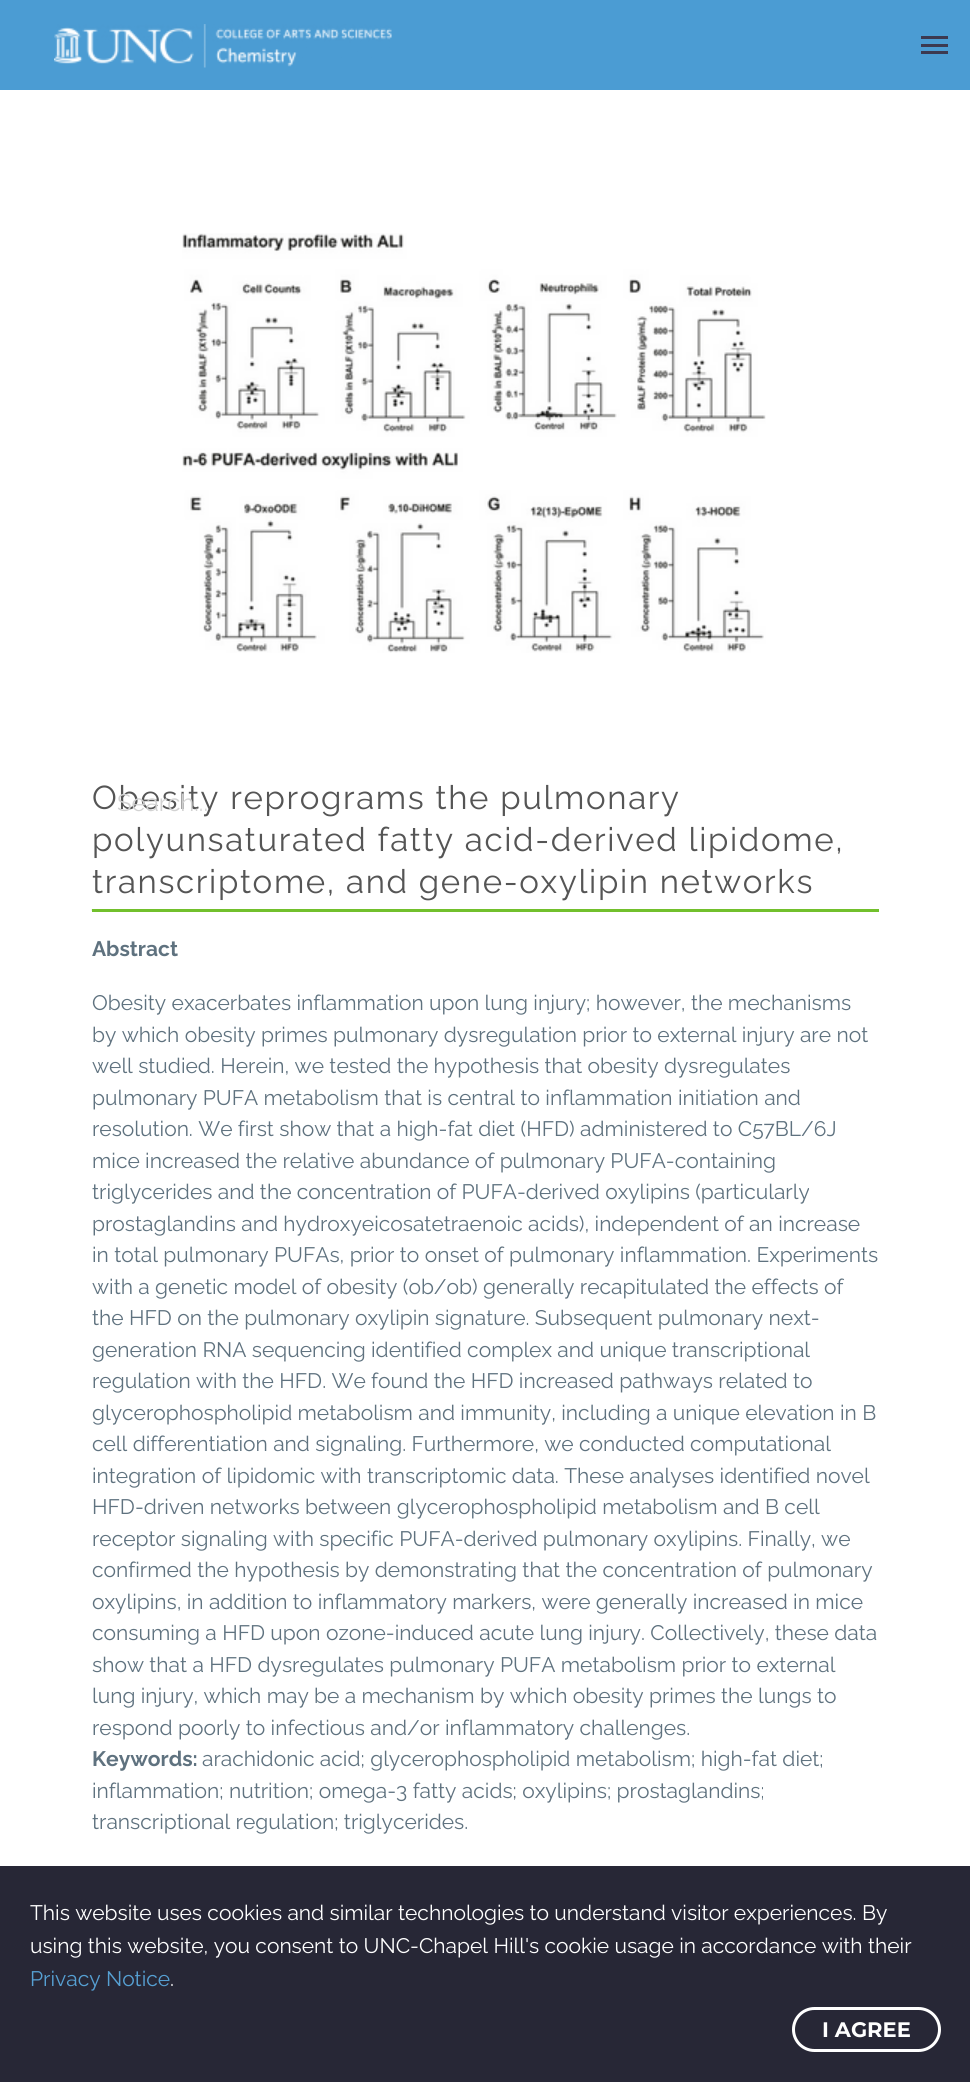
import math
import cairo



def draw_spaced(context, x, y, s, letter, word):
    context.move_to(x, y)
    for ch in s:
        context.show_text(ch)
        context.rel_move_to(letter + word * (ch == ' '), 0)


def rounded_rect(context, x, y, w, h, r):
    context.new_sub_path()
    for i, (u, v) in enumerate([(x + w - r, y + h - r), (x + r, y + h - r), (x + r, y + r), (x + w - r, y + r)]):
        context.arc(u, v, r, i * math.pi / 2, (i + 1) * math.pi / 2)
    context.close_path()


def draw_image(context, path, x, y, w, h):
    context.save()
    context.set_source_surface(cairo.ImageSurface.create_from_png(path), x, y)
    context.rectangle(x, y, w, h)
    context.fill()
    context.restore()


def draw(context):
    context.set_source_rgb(75 / 255, 156 / 255, 211 / 255)
    context.paint()
    context.set_source_rgb(1, 1, 1)
    context.rectangle(0, 90, 970, 1992)
    context.fill()
    draw_image(context, "images/1.png", 182, 233, 584, 420)
    context.new_path()
    context.move_to(91.5, 910)
    context.line_to(879, 910)
    context.set_source_rgb(220 / 255, 220 / 255, 220 / 255)
    context.set_line_width(1.5)
    context.set_dash([1.5, 1.5])
    context.stroke()
    context.set_source_rgb(114 / 255, 192 / 255, 44 / 255)
    context.rectangle(92, 909, 787, 3)
    context.fill()
    draw_image(context, "images/2.png", 54, 24, 338, 44)
    context.set_source_rgb(60 / 255, 57 / 255, 80 / 255)
    context.rectangle(921, 36, 27, 3)
    context.fill()
    context.rectangle(921, 44, 27, 3)
    context.fill()
    context.rectangle(921, 51, 27, 3)
    context.fill()
    context.set_source_rgba(24 / 255, 24 / 255, 40 / 255, 0.93)
    context.rectangle(0, 1866, 970, 216)
    context.fill()
    rounded_rect(context, 793.5, 2008.5, 146, 42, 21)
    context.set_source_rgb(1, 1, 1)
    context.set_line_width(3)
    context.set_dash([])
    context.stroke()
    context.select_font_face("Raleway")
    context.set_font_size(33)
    context.set_source_rgb(85 / 255, 85 / 255, 85 / 255)
    draw_spaced(context, 92, 809, "Obesity reprograms the pulmonary", 1.65, 0)
    draw_spaced(context, 92, 851, "polyunsaturated fatty acid-derived lipidome,", 1.65, 0)
    draw_spaced(context, 92, 893, "transcriptome, and gene-oxylipin networks", 1.65, 0)
    context.select_font_face("Raleway", cairo.FontSlant.NORMAL, cairo.FontWeight.BOLD)
    context.set_font_size(21)
    context.set_source_rgb(95 / 255, 114 / 255, 127 / 255)
    context.move_to(92, 956)
    context.show_text("Abstract")
    context.select_font_face("Raleway")
    context.move_to(92, 1010)
    context.show_text("Obesity exacerbates inflammation upon lung injury; however, the mechanisms")
    context.move_to(92, 1042)
    context.show_text("by which obesity primes pulmonary dysregulation prior to external injury are not")
    context.move_to(92, 1073)
    context.show_text("well studied. Herein, we tested the hypothesis that obesity dysregulates")
    context.move_to(92, 1105)
    context.show_text("pulmonary PUFA metabolism that is central to inflammation initiation and")
    context.move_to(92, 1136)
    context.show_text("resolution. We first show that a high-fat diet (HFD) administered to C57BL/6J")
    context.move_to(92, 1168)
    context.show_text("mice increased the relative abundance of pulmonary PUFA-containing")
    context.move_to(92, 1199)
    context.show_text("triglycerides and the concentration of PUFA-derived oxylipins (particularly")
    context.move_to(92, 1231)
    context.show_text("prostaglandins and hydroxyeicosatetraenoic acids), independent of an increase")
    context.move_to(92, 1262)
    context.show_text("in total pulmonary PUFAs, prior to onset of pulmonary inflammation. Experiments")
    context.move_to(92, 1294)
    context.show_text("with a genetic model of obesity (ob/ob) generally recapitulated the effects of")
    context.move_to(92, 1325)
    context.show_text("the HFD on the pulmonary oxylipin signature. Subsequent pulmonary next-")
    context.move_to(92, 1357)
    context.show_text("generation RNA sequencing identified complex and unique transcriptional")
    context.move_to(92, 1388)
    context.show_text("regulation with the HFD. We found the HFD increased pathways related to")
    context.move_to(92, 1420)
    context.show_text("glycerophospholipid metabolism and immunity, including a unique elevation in B")
    context.move_to(92, 1451)
    context.show_text("cell differentiation and signaling. Furthermore, we conducted computational")
    context.move_to(92, 1483)
    context.show_text("integration of lipidomic with transcriptomic data. These analyses identified novel")
    context.move_to(92, 1514)
    context.show_text("HFD-driven networks between glycerophospholipid metabolism and B cell")
    context.move_to(92, 1546)
    context.show_text("receptor signaling with specific PUFA-derived pulmonary oxylipins. Finally, we")
    context.move_to(92, 1577)
    context.show_text("confirmed the hypothesis by demonstrating that the concentration of pulmonary")
    context.move_to(92, 1609)
    context.show_text("oxylipins, in addition to inflammatory markers, were generally increased in mice")
    context.move_to(92, 1640)
    context.show_text("consuming a HFD upon ozone-induced acute lung injury. Collectively, these data")
    context.move_to(92, 1672)
    context.show_text("show that a HFD dysregulates pulmonary PUFA metabolism prior to external")
    context.move_to(92, 1703)
    context.show_text("lung injury, which may be a mechanism by which obesity primes the lungs to")
    context.move_to(92, 1735)
    context.show_text("respond poorly to infectious and/or inflammatory challenges.")
    context.select_font_face("Raleway", cairo.FontSlant.NORMAL, cairo.FontWeight.BOLD)
    context.move_to(92, 1766)
    context.show_text("Keywords:")
    context.select_font_face("Raleway")
    context.move_to(202, 1766)
    context.show_text("arachidonic acid; glycerophospholipid metabolism; high-fat diet;")
    context.move_to(92, 1798)
    context.show_text("inflammation; nutrition; omega-3 fatty acids; oxylipins; prostaglandins;")
    context.move_to(92, 1829)
    context.show_text("transcriptional regulation; triglycerides.")
    context.set_font_size(24)
    context.set_source_rgb(210 / 255, 210 / 255, 210 / 255)
    context.move_to(117, 811)
    context.show_text("Search...")
    context.set_font_size(21)
    context.set_source_rgb(1, 1, 1)
    context.move_to(30, 1920)
    context.show_text("This website uses cookies and similar technologies to understand visitor experiences. By")
    context.move_to(30, 1953)
    context.show_text("using this website, you consent to UNC-Chapel Hill's cookie usage in accordance with their")
    context.set_source_rgb(86 / 255, 160 / 255, 211 / 255)
    context.move_to(30, 1986)
    context.show_text("Privacy Notice")
    context.set_source_rgb(1, 1, 1)
    context.move_to(170, 1986)
    context.show_text(".")
    context.select_font_face("Montserrat", cairo.FontSlant.NORMAL, cairo.FontWeight.BOLD)
    context.move_to(822, 2037)
    context.show_text("I AGREE")


surface = cairo.ImageSurface(cairo.Format.RGB24, 970, 2082)
context = cairo.Context(surface)
options = cairo.FontOptions()
options.set_hint_metrics(cairo.HintMetrics.OFF)
options.set_hint_style(cairo.HintStyle.NONE)
context.set_font_options(options)
context.set_miter_limit(4)
draw(context)
surface.write_to_png("out.png")
